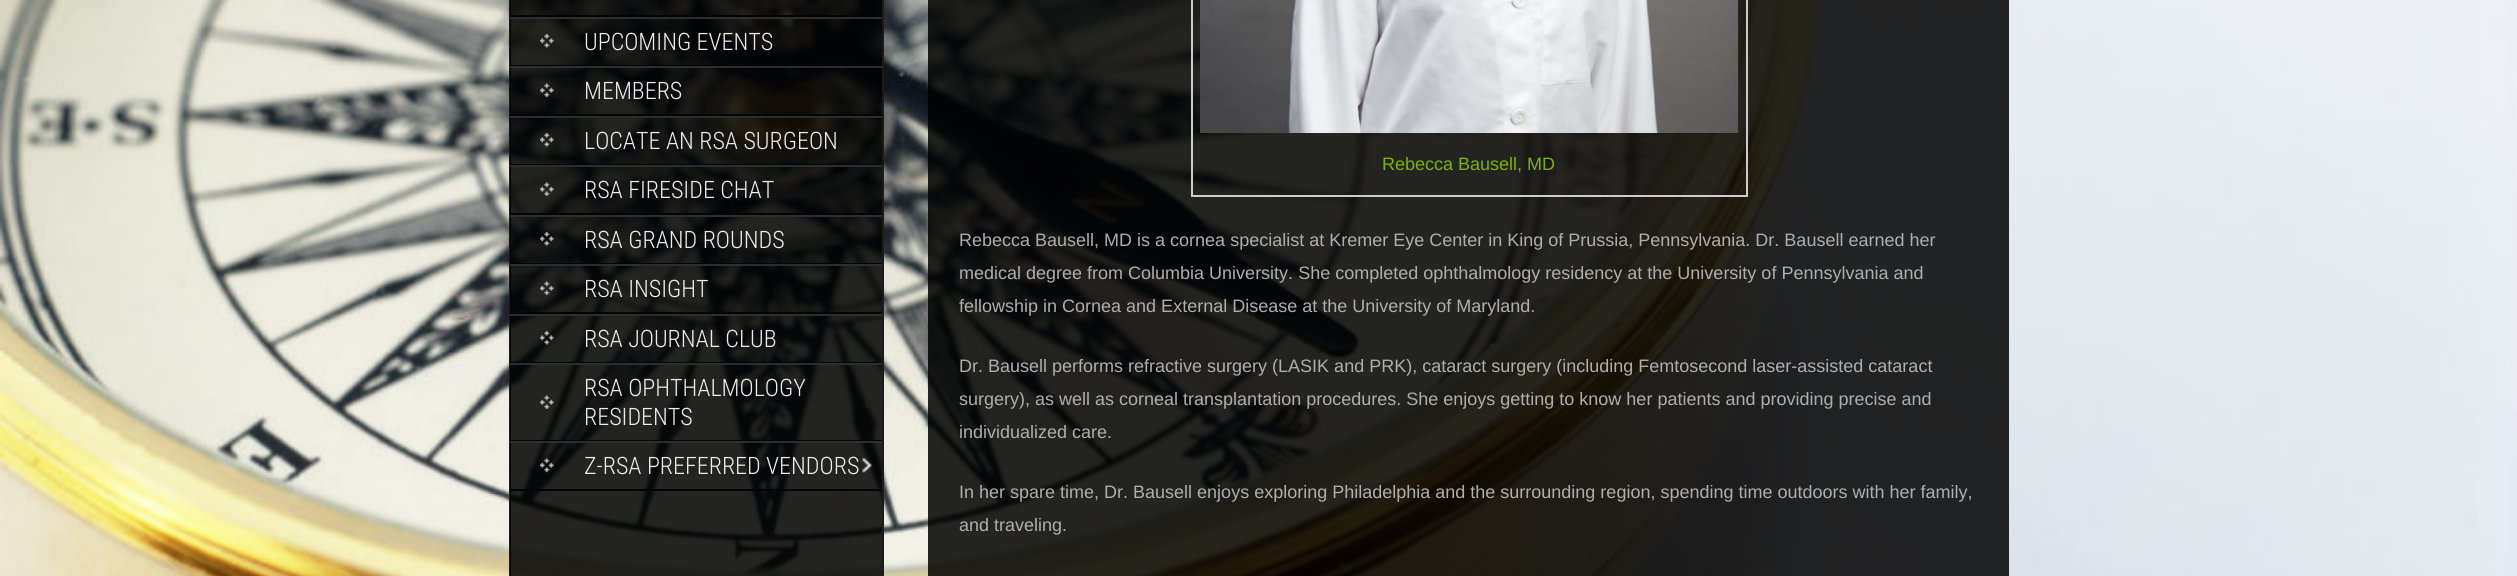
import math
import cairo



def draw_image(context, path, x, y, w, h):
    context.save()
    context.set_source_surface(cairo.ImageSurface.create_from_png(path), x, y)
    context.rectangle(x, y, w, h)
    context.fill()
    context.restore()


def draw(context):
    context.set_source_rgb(1, 1, 1)
    context.paint()
    draw_image(context, "images/1.png", 0, 0, 2517, 576)
    context.set_source_rgb(27 / 255, 27 / 255, 27 / 255)
    context.rectangle(882, 0, 2, 576)
    context.fill()
    context.rectangle(509, 0, 2, 576)
    context.fill()
    context.set_source_rgba(0, 0, 0, 0.85)
    context.rectangle(510, 0, 372, 576)
    context.fill()
    context.set_source_rgb(4 / 255, 5 / 255, 6 / 255)
    context.rectangle(510, 15, 344, 2)
    context.fill()
    context.set_source_rgb(44 / 255, 45 / 255, 46 / 255)
    context.rectangle(510, 17, 372, 2)
    context.fill()
    context.set_source_rgb(4 / 255, 5 / 255, 6 / 255)
    context.rectangle(510, 65, 207, 1)
    context.fill()
    draw_image(context, "images/2.png", 540, 34, 14, 14)
    context.set_source_rgb(44 / 255, 45 / 255, 46 / 255)
    context.rectangle(510, 66, 372, 2)
    context.fill()
    context.set_source_rgb(4 / 255, 5 / 255, 6 / 255)
    context.rectangle(510, 114, 372, 2)
    context.fill()
    draw_image(context, "images/3.png", 540, 83, 14, 14)
    context.set_source_rgb(44 / 255, 45 / 255, 46 / 255)
    context.rectangle(510, 116, 372, 2)
    context.fill()
    context.set_source_rgb(4 / 255, 5 / 255, 6 / 255)
    context.rectangle(510, 164, 372, 1)
    context.fill()
    draw_image(context, "images/4.png", 540, 133, 14, 14)
    context.set_source_rgb(44 / 255, 45 / 255, 46 / 255)
    context.rectangle(510, 165, 372, 2)
    context.fill()
    context.set_source_rgb(4 / 255, 5 / 255, 6 / 255)
    context.rectangle(510, 213, 372, 2)
    context.fill()
    draw_image(context, "images/5.png", 540, 182, 14, 14)
    context.set_source_rgb(44 / 255, 45 / 255, 46 / 255)
    context.rectangle(510, 215, 372, 2)
    context.fill()
    context.set_source_rgb(4 / 255, 5 / 255, 6 / 255)
    context.rectangle(510, 263, 372, 1)
    context.fill()
    draw_image(context, "images/6.png", 540, 232, 14, 14)
    context.set_source_rgb(44 / 255, 45 / 255, 46 / 255)
    context.rectangle(510, 264, 372, 2)
    context.fill()
    context.set_source_rgb(4 / 255, 5 / 255, 6 / 255)
    context.rectangle(523, 312, 359, 2)
    context.fill()
    draw_image(context, "images/7.png", 540, 281, 14, 14)
    context.set_source_rgb(44 / 255, 45 / 255, 46 / 255)
    context.rectangle(510, 314, 372, 2)
    context.fill()
    context.set_source_rgb(4 / 255, 5 / 255, 6 / 255)
    context.rectangle(510, 362, 372, 1)
    context.fill()
    draw_image(context, "images/8.png", 540, 331, 14, 14)
    context.set_source_rgb(44 / 255, 45 / 255, 46 / 255)
    context.rectangle(510, 363, 372, 2)
    context.fill()
    context.set_source_rgb(4 / 255, 5 / 255, 6 / 255)
    context.rectangle(510, 440, 372, 1)
    context.fill()
    draw_image(context, "images/9.png", 540, 395, 14, 14)
    draw_image(context, "images/10.png", 862, 458, 10, 15)
    context.set_source_rgb(44 / 255, 45 / 255, 46 / 255)
    context.rectangle(510, 441, 372, 2)
    context.fill()
    context.set_source_rgb(4 / 255, 5 / 255, 6 / 255)
    context.rectangle(510, 489, 372, 2)
    context.fill()
    draw_image(context, "images/11.png", 540, 458, 14, 14)
    context.set_source_rgba(0, 0, 0, 0.85)
    context.rectangle(928, 0, 1081, 576)
    context.fill()
    context.rectangle(1192, -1, 555, 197)
    context.set_source_rgb(204 / 255, 204 / 255, 204 / 255)
    context.stroke()
    draw_image(context, "images/12.png", 1200, 0, 539, 133)
    context.select_font_face("Roboto Condensed Light")
    context.set_font_size(24)
    context.set_source_rgb(238 / 255, 237 / 255, 237 / 255)
    context.move_to(584, 50)
    context.show_text("UPCOMING EVENTS")
    context.move_to(584, 99)
    context.show_text("MEMBERS")
    context.move_to(584, 149)
    context.show_text("LOCATE AN RSA SURGEON")
    context.move_to(584, 198)
    context.show_text("RSA FIRESIDE CHAT")
    context.move_to(584, 248)
    context.show_text("RSA GRAND ROUNDS")
    context.move_to(584, 297)
    context.show_text("RSA INSIGHT")
    context.move_to(584, 347)
    context.show_text("RSA JOURNAL CLUB")
    context.move_to(584, 396)
    context.show_text("RSA OPHTHALMOLOGY")
    context.move_to(584, 425)
    context.show_text("RESIDENTS")
    context.move_to(584, 474)
    context.show_text("Z-RSA PREFERRED VENDORS")
    context.select_font_face("Liberation Sans")
    context.set_font_size(18)
    context.set_source_rgb(123 / 255, 179 / 255, 3 / 255)
    context.move_to(1382, 170)
    context.show_text("Rebecca Bausell, MD")
    context.set_source_rgb(174 / 255, 174 / 255, 174 / 255)
    context.move_to(959, 246)
    context.show_text("Rebecca Bausell, MD is a cornea specialist at Kremer Eye Center in King of Prussia, Pennsylvania. Dr. Bausell earned her")
    context.move_to(959, 279)
    context.show_text("medical degree from Columbia University. She completed ophthalmology residency at the University of Pennsylvania and")
    context.move_to(959, 312)
    context.show_text("fellowship in Cornea and External Disease at the University of Maryland.")
    context.move_to(959, 372)
    context.show_text("Dr. Bausell performs refractive surgery (LASIK and PRK), cataract surgery (including Femtosecond laser-assisted cataract")
    context.move_to(959, 405)
    context.show_text("surgery), as well as corneal transplantation procedures. She enjoys getting to know her patients and providing precise and")
    context.move_to(959, 438)
    context.show_text("individualized care.")
    context.move_to(959, 498)
    context.show_text("In her spare time, Dr. Bausell enjoys exploring Philadelphia and the surrounding region, spending time outdoors with her family,")
    context.move_to(959, 531)
    context.show_text("and traveling.")


surface = cairo.ImageSurface(cairo.Format.RGB24, 2517, 576)
context = cairo.Context(surface)
options = cairo.FontOptions()
options.set_hint_metrics(cairo.HintMetrics.OFF)
options.set_hint_style(cairo.HintStyle.NONE)
context.set_font_options(options)
context.set_miter_limit(4)
draw(context)
surface.write_to_png("out.png")
